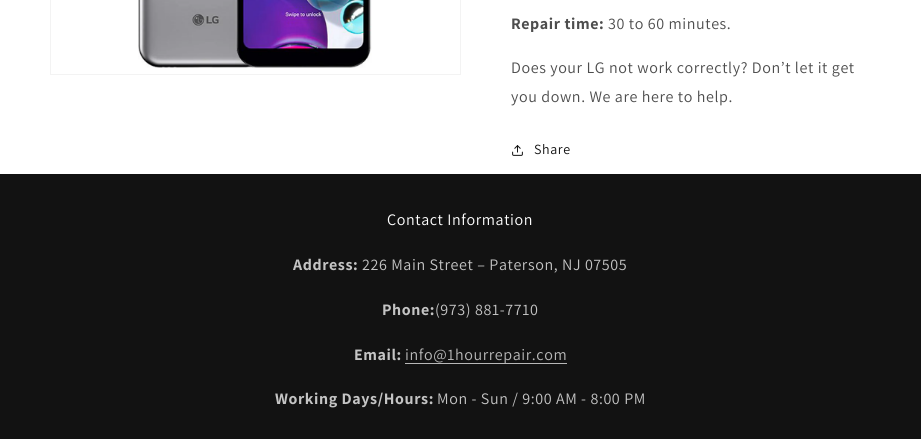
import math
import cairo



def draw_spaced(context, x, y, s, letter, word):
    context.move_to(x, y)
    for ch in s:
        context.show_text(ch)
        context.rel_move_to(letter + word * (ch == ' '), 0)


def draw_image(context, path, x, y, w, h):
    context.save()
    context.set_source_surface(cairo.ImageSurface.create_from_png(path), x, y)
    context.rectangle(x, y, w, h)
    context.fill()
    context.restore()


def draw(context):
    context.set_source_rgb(1, 1, 1)
    context.paint()
    context.rectangle(50.5, -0.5, 410, 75)
    context.set_source_rgb(243 / 255, 243 / 255, 243 / 255)
    context.set_line_width(1)
    context.stroke()
    draw_image(context, "images/1.png", 138, 0, 234, 68)
    draw_image(context, "images/2.png", 512, 145, 11, 11)
    context.set_source_rgb(18 / 255, 18 / 255, 18 / 255)
    context.rectangle(0, 174, 921, 265)
    context.fill()
    context.set_source_rgb(184 / 255, 184 / 255, 184 / 255)
    context.rectangle(405, 363, 162, 1)
    context.fill()
    context.select_font_face("Assistant", cairo.FontSlant.NORMAL, cairo.FontWeight.BOLD)
    context.set_font_size(16)
    context.set_source_rgb(77 / 255, 77 / 255, 77 / 255)
    draw_spaced(context, 511, 29, "Repair time:", 0.6, 0)
    context.select_font_face("Assistant")
    draw_spaced(context, 608, 29, "30 to 60 minutes.", 0.6, 0)
    draw_spaced(context, 511, 73, "Does your LG not work correctly? Don’t let it get", 0.6, 0)
    draw_spaced(context, 511, 102, "you down. We are here to help.", 0.6, 0)
    context.set_font_size(14)
    context.set_source_rgb(18 / 255, 18 / 255, 18 / 255)
    draw_spaced(context, 534, 154, "Share", 0.6, 0)
    context.set_font_size(16)
    context.set_source_rgb(1, 1, 1)
    draw_spaced(context, 387, 225, "Contact Information", 0.6, 0)
    context.select_font_face("Assistant", cairo.FontSlant.NORMAL, cairo.FontWeight.BOLD)
    context.set_source_rgb(196 / 255, 196 / 255, 196 / 255)
    draw_spaced(context, 293, 270, "Address:", 0.6, 0)
    context.select_font_face("Assistant")
    draw_spaced(context, 362, 270, "226 Main Street – Paterson, NJ 07505", 0.6, 0)
    context.select_font_face("Assistant", cairo.FontSlant.NORMAL, cairo.FontWeight.BOLD)
    draw_spaced(context, 382, 315, "Phone:", 0.6, 0)
    context.select_font_face("Assistant")
    draw_spaced(context, 435, 315, "(973) 881-7710", 0.6, 0)
    context.select_font_face("Assistant", cairo.FontSlant.NORMAL, cairo.FontWeight.BOLD)
    draw_spaced(context, 354, 360, "Email:", 0.6, 0)
    context.select_font_face("Assistant")
    context.set_source_rgb(184 / 255, 184 / 255, 184 / 255)
    draw_spaced(context, 405, 360, "info@1hourrepair.com", 0.6, 0)
    context.select_font_face("Assistant", cairo.FontSlant.NORMAL, cairo.FontWeight.BOLD)
    context.set_source_rgb(196 / 255, 196 / 255, 196 / 255)
    draw_spaced(context, 275, 404, "Working Days/Hours:", 0.6, 0)
    context.select_font_face("Assistant")
    draw_spaced(context, 437, 404, "Mon - Sun / 9:00 AM - 8:00 PM", 0.6, 0)


surface = cairo.ImageSurface(cairo.Format.RGB24, 921, 439)
context = cairo.Context(surface)
options = cairo.FontOptions()
options.set_hint_metrics(cairo.HintMetrics.OFF)
options.set_hint_style(cairo.HintStyle.NONE)
context.set_font_options(options)
context.set_miter_limit(4)
draw(context)
surface.write_to_png("out.png")
